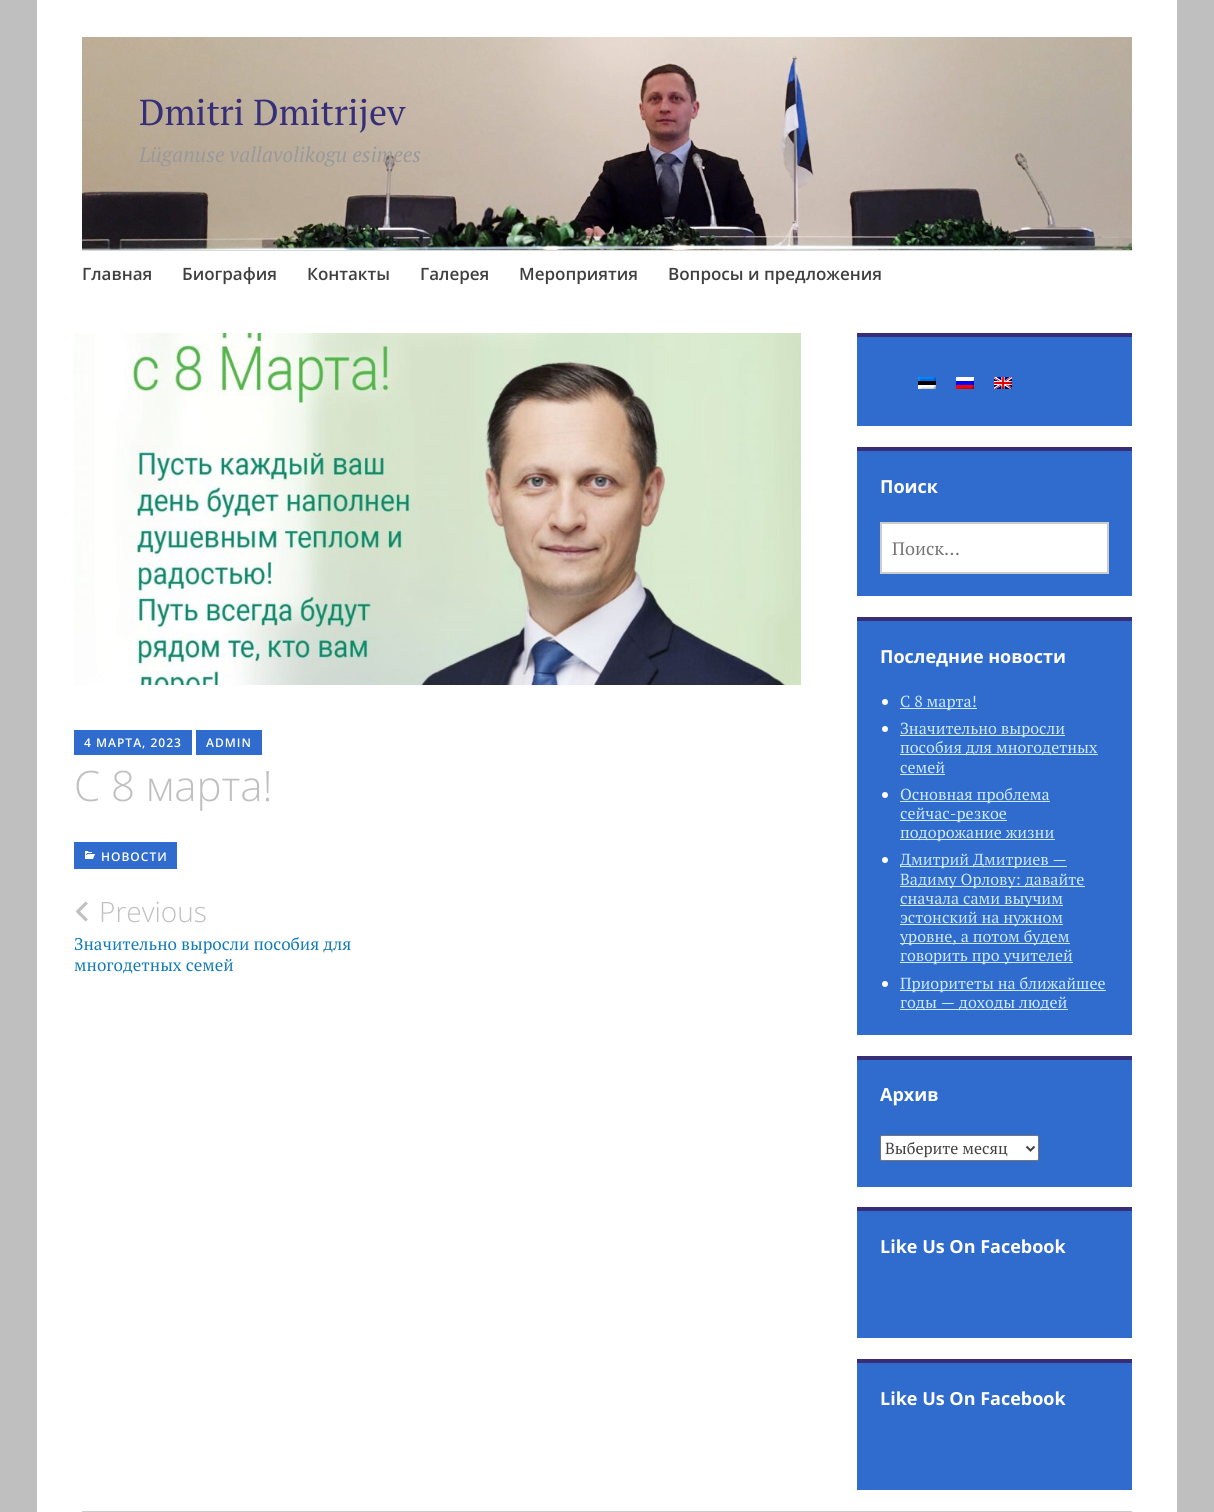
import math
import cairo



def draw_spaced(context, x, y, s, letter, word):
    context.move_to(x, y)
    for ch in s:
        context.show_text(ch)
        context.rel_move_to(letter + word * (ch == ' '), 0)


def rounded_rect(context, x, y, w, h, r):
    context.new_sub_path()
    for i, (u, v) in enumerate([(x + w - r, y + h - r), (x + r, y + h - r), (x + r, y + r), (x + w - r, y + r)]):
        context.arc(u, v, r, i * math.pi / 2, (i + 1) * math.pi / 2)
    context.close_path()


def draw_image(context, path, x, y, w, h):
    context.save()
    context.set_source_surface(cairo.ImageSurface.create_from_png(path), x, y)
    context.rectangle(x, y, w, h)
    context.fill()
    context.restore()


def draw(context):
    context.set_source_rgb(191 / 255, 191 / 255, 191 / 255)
    context.paint()
    context.set_source_rgb(1, 1, 1)
    context.rectangle(37, 0, 1140, 1512)
    context.fill()
    draw_image(context, "images/1.png", 82, 37, 1050, 213)
    context.set_source_rgb(217 / 255, 217 / 255, 217 / 255)
    context.rectangle(82, 250, 1050, 1)
    context.fill()
    draw_image(context, "images/2.png", 74, 333, 727, 352)
    context.set_source_rgb(47 / 255, 108 / 255, 206 / 255)
    context.rectangle(74, 730, 118, 25)
    context.fill()
    context.rectangle(196, 730, 66, 25)
    context.fill()
    context.rectangle(74, 842, 103, 27)
    context.fill()
    draw_image(context, "images/3.png", 85, 851, 10, 8)
    context.set_source_rgb(192 / 255, 192 / 255, 192 / 255)
    context.new_path()
    context.move_to(85.5, 901.5)
    context.line_to(88, 903.5)
    context.line_to(80, 911.5)
    context.line_to(88, 919.5)
    context.line_to(85.5, 921.5)
    context.line_to(75.5, 911.5)
    context.close_path()
    context.fill()
    context.set_source_rgb(47 / 255, 108 / 255, 206 / 255)
    context.rectangle(857, 337, 275, 89)
    context.fill()
    context.set_source_rgb(54 / 255, 46 / 255, 119 / 255)
    context.rectangle(857, 333, 275, 4)
    context.fill()
    draw_image(context, "images/4.png", 918, 377, 18, 12)
    draw_image(context, "images/5.png", 956, 377, 18, 12)
    draw_image(context, "images/6.png", 994, 377, 18, 12)
    context.set_source_rgb(47 / 255, 108 / 255, 206 / 255)
    context.rectangle(857, 451, 275, 145)
    context.fill()
    context.set_source_rgb(54 / 255, 46 / 255, 119 / 255)
    context.rectangle(857, 447, 275, 4)
    context.fill()
    context.set_source_rgb(1, 1, 1)
    context.rectangle(881, 523, 227, 50)
    context.fill_preserve()
    context.set_source_rgb(204 / 255, 204 / 255, 204 / 255)
    context.stroke()
    context.set_source_rgb(47 / 255, 108 / 255, 206 / 255)
    context.rectangle(857, 621, 275, 414)
    context.fill()
    context.set_source_rgb(54 / 255, 46 / 255, 119 / 255)
    context.rectangle(857, 617, 275, 4)
    context.fill()
    context.set_source_rgb(1, 1, 1)
    context.arc(885, 702, 3, 0, 2 * math.pi)
    context.fill()
    context.set_source_rgb(206 / 255, 234 / 255, 250 / 255)
    context.rectangle(900, 708, 77, 1)
    context.fill()
    context.set_source_rgb(1, 1, 1)
    context.arc(885, 729, 3, 0, 2 * math.pi)
    context.fill()
    context.set_source_rgb(206 / 255, 234 / 255, 250 / 255)
    context.rectangle(900, 735, 165, 1)
    context.fill()
    context.rectangle(900, 754, 198, 1)
    context.fill()
    context.rectangle(900, 774, 45, 1)
    context.fill()
    context.set_source_rgb(1, 1, 1)
    context.arc(885, 795, 3, 0, 2 * math.pi)
    context.fill()
    context.set_source_rgb(206 / 255, 234 / 255, 250 / 255)
    context.rectangle(900, 801, 150, 1)
    context.fill()
    context.rectangle(900, 820, 107, 1)
    context.fill()
    context.rectangle(900, 839, 155, 1)
    context.fill()
    context.set_source_rgb(1, 1, 1)
    context.arc(885, 860, 3, 0, 2 * math.pi)
    context.fill()
    context.set_source_rgb(206 / 255, 234 / 255, 250 / 255)
    context.rectangle(900, 866, 167, 1)
    context.fill()
    context.rectangle(900, 886, 185, 1)
    context.fill()
    context.rectangle(900, 905, 163, 1)
    context.fill()
    context.rectangle(900, 924, 163, 1)
    context.fill()
    context.rectangle(900, 943, 170, 1)
    context.fill()
    context.rectangle(900, 962, 173, 1)
    context.fill()
    context.set_source_rgb(1, 1, 1)
    context.arc(885, 984, 3, 0, 2 * math.pi)
    context.fill()
    context.set_source_rgb(206 / 255, 234 / 255, 250 / 255)
    context.rectangle(900, 990, 206, 1)
    context.fill()
    context.rectangle(900, 1009, 168, 1)
    context.fill()
    context.set_source_rgb(47 / 255, 108 / 255, 206 / 255)
    context.rectangle(857, 1060, 275, 127)
    context.fill()
    context.set_source_rgb(54 / 255, 46 / 255, 119 / 255)
    context.rectangle(857, 1056, 275, 4)
    context.fill()
    context.set_source_rgb(1, 1, 1)
    rounded_rect(context, 880.5, 1135.5, 158, 25, 1.5)
    context.fill_preserve()
    context.set_source_rgb(118 / 255, 118 / 255, 118 / 255)
    context.set_line_width(1)
    context.stroke()
    context.new_path()
    context.move_to(1026.5, 1146.5)
    context.line_to(1030.5, 1150.5)
    context.line_to(1034.5, 1146.5)
    context.set_source_rgb(64 / 255, 64 / 255, 64 / 255)
    context.set_line_width(2)
    context.stroke()
    context.set_source_rgb(47 / 255, 108 / 255, 206 / 255)
    context.rectangle(857, 1211, 275, 127)
    context.fill()
    context.set_source_rgb(54 / 255, 46 / 255, 119 / 255)
    context.rectangle(857, 1207, 275, 4)
    context.fill()
    context.set_source_rgb(47 / 255, 108 / 255, 206 / 255)
    context.rectangle(857, 1363, 275, 127)
    context.fill()
    context.set_source_rgb(54 / 255, 46 / 255, 119 / 255)
    context.rectangle(857, 1359, 275, 4)
    context.fill()
    context.set_source_rgb(204 / 255, 204 / 255, 204 / 255)
    context.rectangle(82, 1511, 1050, 1)
    context.fill()
    context.select_font_face("PT Serif")
    context.set_font_size(36)
    context.set_source_rgb(54 / 255, 46 / 255, 119 / 255)
    context.move_to(139, 125)
    context.show_text("Dmitri Dmitrijev")
    context.select_font_face("PT Serif", cairo.FontSlant.ITALIC)
    context.set_font_size(21)
    context.set_source_rgb(153 / 255, 153 / 255, 153 / 255)
    context.move_to(139, 162)
    context.show_text("Lüganuse vallavolikogu esimees")
    context.select_font_face("Open Sans SemiBold")
    context.set_font_size(17)
    context.set_source_rgb(64 / 255, 64 / 255, 64 / 255)
    context.move_to(82, 280)
    context.show_text("Главная")
    context.move_to(182, 280)
    context.show_text("Биография")
    context.move_to(307, 280)
    context.show_text("Контакты")
    context.move_to(420, 280)
    context.show_text("Галерея")
    context.move_to(519, 280)
    context.show_text("Мероприятия")
    context.move_to(668, 280)
    context.show_text("Вопросы и предложения")
    context.set_font_size(12)
    context.set_source_rgb(1, 1, 1)
    draw_spaced(context, 84, 747, "4 МАРТА, 2023", 1, 0)
    draw_spaced(context, 206, 747, "ADMIN", 1, 0)
    context.select_font_face("Open Sans Light")
    context.set_font_size(42)
    context.set_source_rgb(192 / 255, 192 / 255, 192 / 255)
    context.move_to(74, 801)
    context.show_text("С 8 марта!")
    context.select_font_face("Open Sans SemiBold")
    context.set_font_size(12)
    context.set_source_rgb(1, 1, 1)
    draw_spaced(context, 101, 861, "НОВОСТИ", 1, 0)
    context.select_font_face("Open Sans Light")
    context.set_font_size(28)
    context.set_source_rgb(192 / 255, 192 / 255, 192 / 255)
    context.move_to(99, 922)
    context.show_text("Previous")
    context.select_font_face("PT Serif")
    context.set_font_size(17)
    context.set_source_rgb(17 / 255, 123 / 255, 184 / 255)
    context.move_to(74, 950)
    context.show_text("Значительно выросли пособия для")
    context.move_to(74, 971)
    context.show_text("многодетных семей")
    context.select_font_face("Open Sans", cairo.FontSlant.NORMAL, cairo.FontWeight.BOLD)
    context.set_font_size(18)
    context.set_source_rgb(1, 1, 1)
    context.move_to(880, 493)
    context.show_text("Поиск")
    context.select_font_face("PT Serif")
    context.set_source_rgb(117 / 255, 117 / 255, 117 / 255)
    context.move_to(892, 555)
    context.show_text("Поиск…")
    context.select_font_face("Open Sans", cairo.FontSlant.NORMAL, cairo.FontWeight.BOLD)
    context.set_source_rgb(1, 1, 1)
    context.move_to(880, 663)
    context.show_text("Последние новости")
    context.select_font_face("PT Serif")
    context.set_font_size(16)
    context.set_source_rgb(206 / 255, 234 / 255, 250 / 255)
    context.move_to(900, 707)
    context.show_text("С 8 марта!")
    context.move_to(900, 734)
    context.show_text("Значительно выросли")
    context.move_to(900, 753)
    context.show_text("пособия для многодетных")
    context.move_to(900, 773)
    context.show_text("семей")
    context.move_to(900, 800)
    context.show_text("Основная проблема")
    context.move_to(900, 819)
    context.show_text("сейчас-резкое")
    context.move_to(900, 838)
    context.show_text("подорожание жизни")
    context.move_to(900, 865)
    context.show_text("Дмитрий Дмитриев —")
    context.move_to(900, 885)
    context.show_text("Вадиму Орлову: давайте")
    context.move_to(900, 904)
    context.show_text("сначала сами выучим")
    context.move_to(900, 923)
    context.show_text("эстонский на нужном")
    context.move_to(900, 942)
    context.show_text("уровне, а потом будем")
    context.move_to(900, 961)
    context.show_text("говорить про учителей")
    context.move_to(900, 989)
    context.show_text("Приоритеты на ближайшее")
    context.move_to(900, 1008)
    context.show_text("годы — доходы людей")
    context.select_font_face("Open Sans", cairo.FontSlant.NORMAL, cairo.FontWeight.BOLD)
    context.set_font_size(18)
    context.set_source_rgb(1, 1, 1)
    context.move_to(880, 1101)
    context.show_text("Архив")
    context.select_font_face("PT Serif")
    context.set_font_size(16)
    context.set_source_rgb(64 / 255, 64 / 255, 64 / 255)
    context.move_to(885, 1154)
    context.show_text("Выберите месяц")
    context.select_font_face("Open Sans", cairo.FontSlant.NORMAL, cairo.FontWeight.BOLD)
    context.set_font_size(18)
    context.set_source_rgb(1, 1, 1)
    context.move_to(880, 1253)
    context.show_text("Like Us On Facebook")
    context.move_to(880, 1405)
    context.show_text("Like Us On Facebook")


surface = cairo.ImageSurface(cairo.Format.RGB24, 1214, 1512)
context = cairo.Context(surface)
options = cairo.FontOptions()
options.set_hint_metrics(cairo.HintMetrics.OFF)
options.set_hint_style(cairo.HintStyle.NONE)
context.set_font_options(options)
context.set_miter_limit(4)
draw(context)
surface.write_to_png("out.png")
